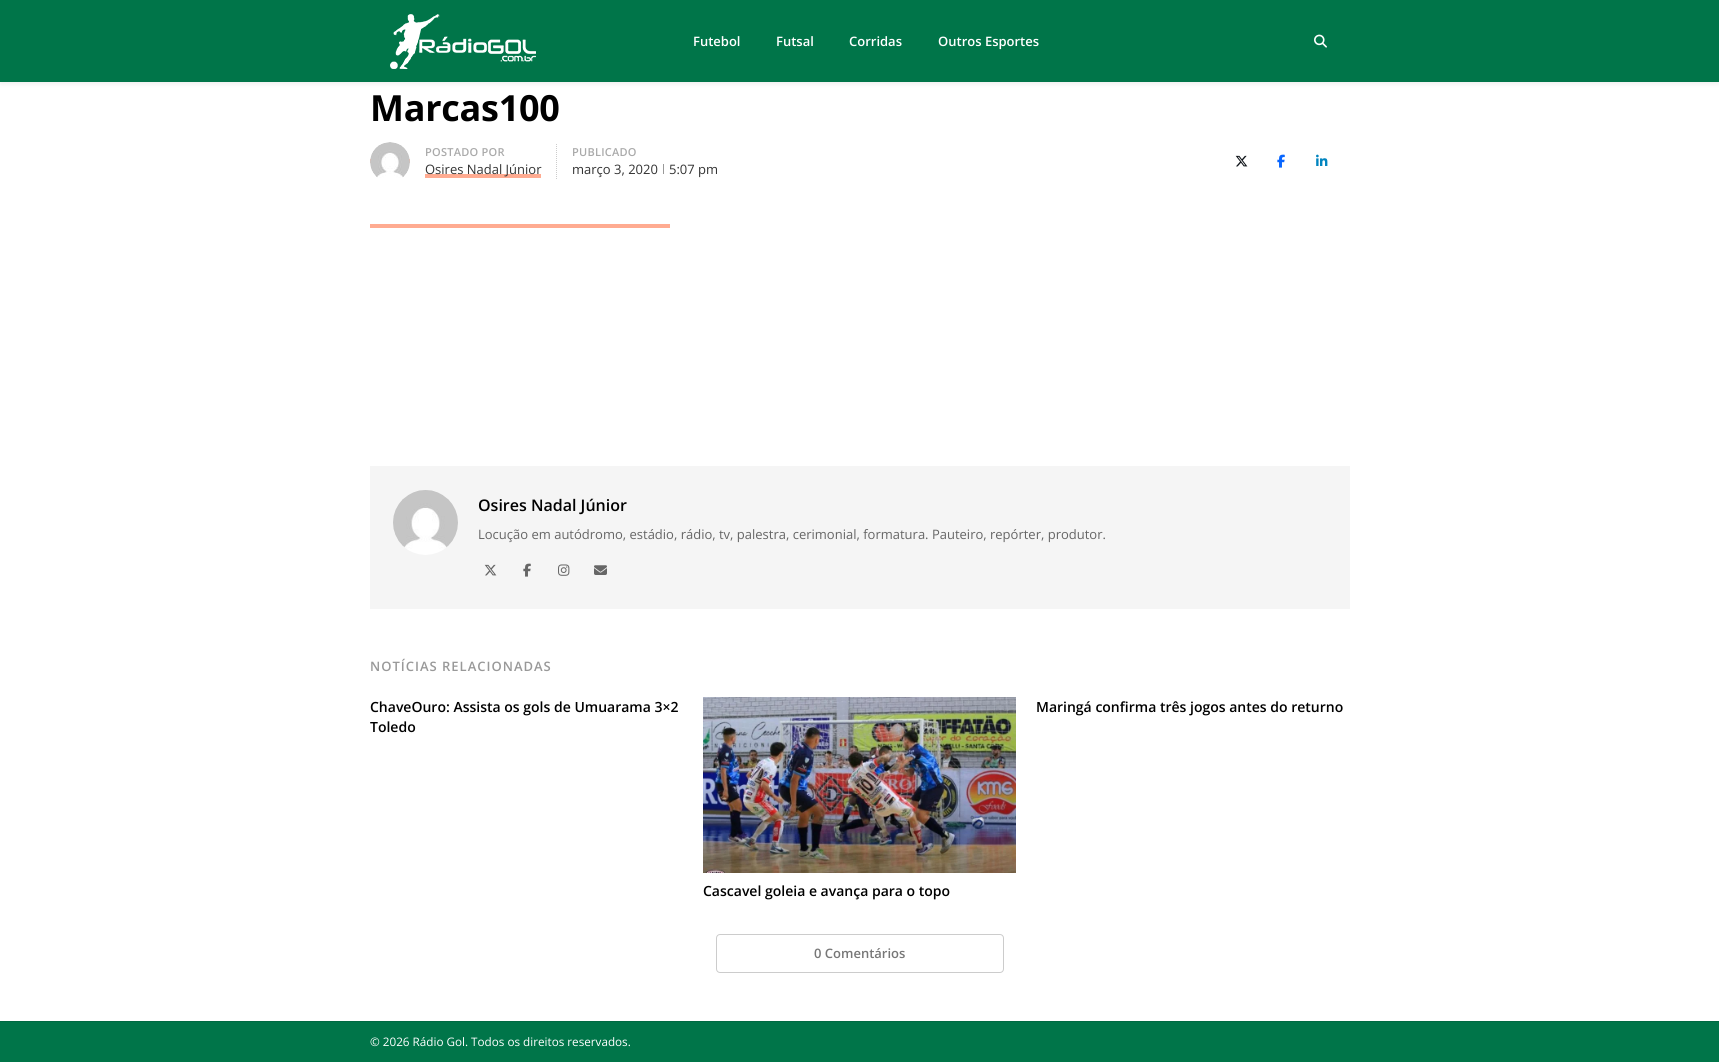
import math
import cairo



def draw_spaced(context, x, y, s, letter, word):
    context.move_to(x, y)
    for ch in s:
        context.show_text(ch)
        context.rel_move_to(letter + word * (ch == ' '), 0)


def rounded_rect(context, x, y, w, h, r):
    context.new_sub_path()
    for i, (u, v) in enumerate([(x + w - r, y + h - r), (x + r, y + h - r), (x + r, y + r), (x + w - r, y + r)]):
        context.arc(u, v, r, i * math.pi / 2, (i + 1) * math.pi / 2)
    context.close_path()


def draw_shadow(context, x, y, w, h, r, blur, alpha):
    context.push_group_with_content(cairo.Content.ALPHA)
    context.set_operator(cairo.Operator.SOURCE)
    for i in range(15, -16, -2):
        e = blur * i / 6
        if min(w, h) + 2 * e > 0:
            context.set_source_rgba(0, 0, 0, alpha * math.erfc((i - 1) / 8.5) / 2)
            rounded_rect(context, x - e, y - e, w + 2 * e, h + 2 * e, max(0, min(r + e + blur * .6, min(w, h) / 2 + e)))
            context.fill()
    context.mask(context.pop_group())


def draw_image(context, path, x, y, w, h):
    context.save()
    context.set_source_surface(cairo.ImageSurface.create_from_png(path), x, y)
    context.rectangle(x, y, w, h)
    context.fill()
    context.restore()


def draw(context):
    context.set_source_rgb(1, 1, 1)
    context.paint()
    context.set_source_rgb(0, 0, 0)
    draw_shadow(context, 0, 2, 1719, 82, 0, 2.5, 0.07)
    context.set_source_rgb(0, 117 / 255, 73 / 255)
    context.rectangle(0, 0, 1719, 82)
    context.fill()
    draw_image(context, "images/1.png", 390, 14, 146, 55)
    draw_image(context, "images/2.png", 1314, 34, 13, 14)
    context.save()
    rounded_rect(context, 370, 142, 40, 40, 20)
    context.clip()
    context.set_source_rgb(1, 171 / 255, 145 / 255)
    context.rectangle(370, 159, 40, 4)
    context.fill()
    context.restore()
    draw_image(context, "images/3.png", 370, 142, 40, 36)
    context.new_path()
    context.move_to(556.5, 144)
    context.line_to(556.5, 180)
    context.set_source_rgb(204 / 255, 204 / 255, 204 / 255)
    context.set_line_width(1)
    context.set_dash([1, 1])
    context.stroke()
    context.set_source_rgb(1, 171 / 255, 145 / 255)
    context.rectangle(425, 174, 116, 4)
    context.fill()
    context.set_source_rgb(153 / 255, 153 / 255, 153 / 255)
    context.rectangle(663, 164, 1, 10)
    context.fill()
    draw_image(context, "images/4.png", 1235, 155, 13, 12)
    draw_image(context, "images/5.png", 1277, 154, 8, 14)
    draw_image(context, "images/6.png", 1316, 154, 12, 12)
    context.set_source_rgb(1, 171 / 255, 145 / 255)
    context.rectangle(370, 224, 300, 4)
    context.fill()
    context.set_source_rgb(245 / 255, 245 / 255, 245 / 255)
    context.rectangle(370, 466, 980, 143)
    context.fill()
    draw_image(context, "images/7.png", 393, 490, 65, 65)
    draw_image(context, "images/8.png", 484, 564, 13, 12)
    draw_image(context, "images/9.png", 523, 563, 8, 14)
    draw_image(context, "images/10.png", 558, 564, 12, 12)
    draw_image(context, "images/11.png", 594, 565, 13, 10)
    draw_image(context, "images/12.png", 703, 697, 313, 176)
    rounded_rect(context, 716.5, 934.5, 287, 38, 3.5)
    context.set_source_rgb(204 / 255, 204 / 255, 204 / 255)
    context.set_dash([])
    context.stroke()
    context.set_source_rgb(0, 117 / 255, 73 / 255)
    context.rectangle(0, 1022, 1719, 40)
    context.fill()
    context.set_source_rgb(0, 105 / 255, 66 / 255)
    context.rectangle(0, 1021, 1719, 1)
    context.fill()
    context.select_font_face("Open Sans SemiBold")
    context.set_font_size(13)
    context.set_source_rgb(1, 1, 1)
    context.move_to(693, 46)
    context.show_text("Futebol")
    context.move_to(776, 46)
    context.show_text("Futsal")
    context.move_to(849, 46)
    context.show_text("Corridas")
    context.move_to(938, 46)
    context.show_text("Outros Esportes")
    context.select_font_face("Open Sans", cairo.FontSlant.NORMAL, cairo.FontWeight.BOLD)
    context.set_font_size(36)
    context.set_source_rgb(0, 0, 0)
    draw_spaced(context, 370, 121, "Marcas100", -0.25, 0)
    context.select_font_face("Open Sans SemiBold")
    context.set_font_size(11)
    context.set_source_rgb(170 / 255, 170 / 255, 170 / 255)
    draw_spaced(context, 425, 156, "POSTADO POR", 0.25, 0)
    context.select_font_face("Open Sans")
    context.set_font_size(13)
    context.set_source_rgb(51 / 255, 51 / 255, 51 / 255)
    context.move_to(425, 174)
    context.show_text("Osires Nadal Júnior")
    context.select_font_face("Open Sans SemiBold")
    context.set_font_size(11)
    context.set_source_rgb(170 / 255, 170 / 255, 170 / 255)
    draw_spaced(context, 572, 156, "PUBLICADO", 0.25, 0)
    context.select_font_face("Open Sans")
    context.set_font_size(13)
    context.set_source_rgb(51 / 255, 51 / 255, 51 / 255)
    context.move_to(572, 174)
    context.show_text("março 3, 2020")
    context.move_to(669, 174)
    context.show_text("5:07 pm")
    context.select_font_face("Open Sans SemiBold")
    context.set_font_size(16)
    context.set_source_rgb(0, 0, 0)
    context.move_to(478, 511)
    context.show_text("Osires Nadal Júnior")
    context.select_font_face("Open Sans")
    context.set_font_size(13)
    context.set_source_rgb(102 / 255, 102 / 255, 102 / 255)
    context.move_to(478, 539)
    context.show_text("Locução em autódromo, estádio, rádio, tv, palestra, cerimonial, formatura. Pauteiro, repórter, produtor.")
    context.select_font_face("Open Sans SemiBold")
    context.set_source_rgb(153 / 255, 153 / 255, 153 / 255)
    draw_spaced(context, 370, 671, "NOTÍCIAS RELACIONADAS", 1, 0)
    context.set_font_size(14)
    context.set_source_rgb(0, 0, 0)
    context.move_to(370, 712)
    context.show_text("ChaveOuro: Assista os gols de Umuarama 3×2")
    context.move_to(370, 732)
    context.show_text("Toledo")
    context.move_to(1036, 712)
    context.show_text("Maringá confirma três jogos antes do returno")
    context.move_to(703, 896)
    context.show_text("Cascavel goleia e avança para o topo")
    context.set_font_size(13)
    context.set_source_rgb(119 / 255, 119 / 255, 119 / 255)
    context.move_to(814, 958)
    context.show_text("0 Comentários")
    context.select_font_face("Open Sans")
    context.set_font_size(11.7)
    context.set_source_rgb(1, 1, 1)
    context.move_to(370, 1046)
    context.show_text("© 2026 Rádio Gol. Todos os direitos reservados.")


surface = cairo.ImageSurface(cairo.Format.RGB24, 1719, 1062)
context = cairo.Context(surface)
options = cairo.FontOptions()
options.set_hint_metrics(cairo.HintMetrics.OFF)
options.set_hint_style(cairo.HintStyle.NONE)
context.set_font_options(options)
context.set_miter_limit(4)
draw(context)
surface.write_to_png("out.png")
